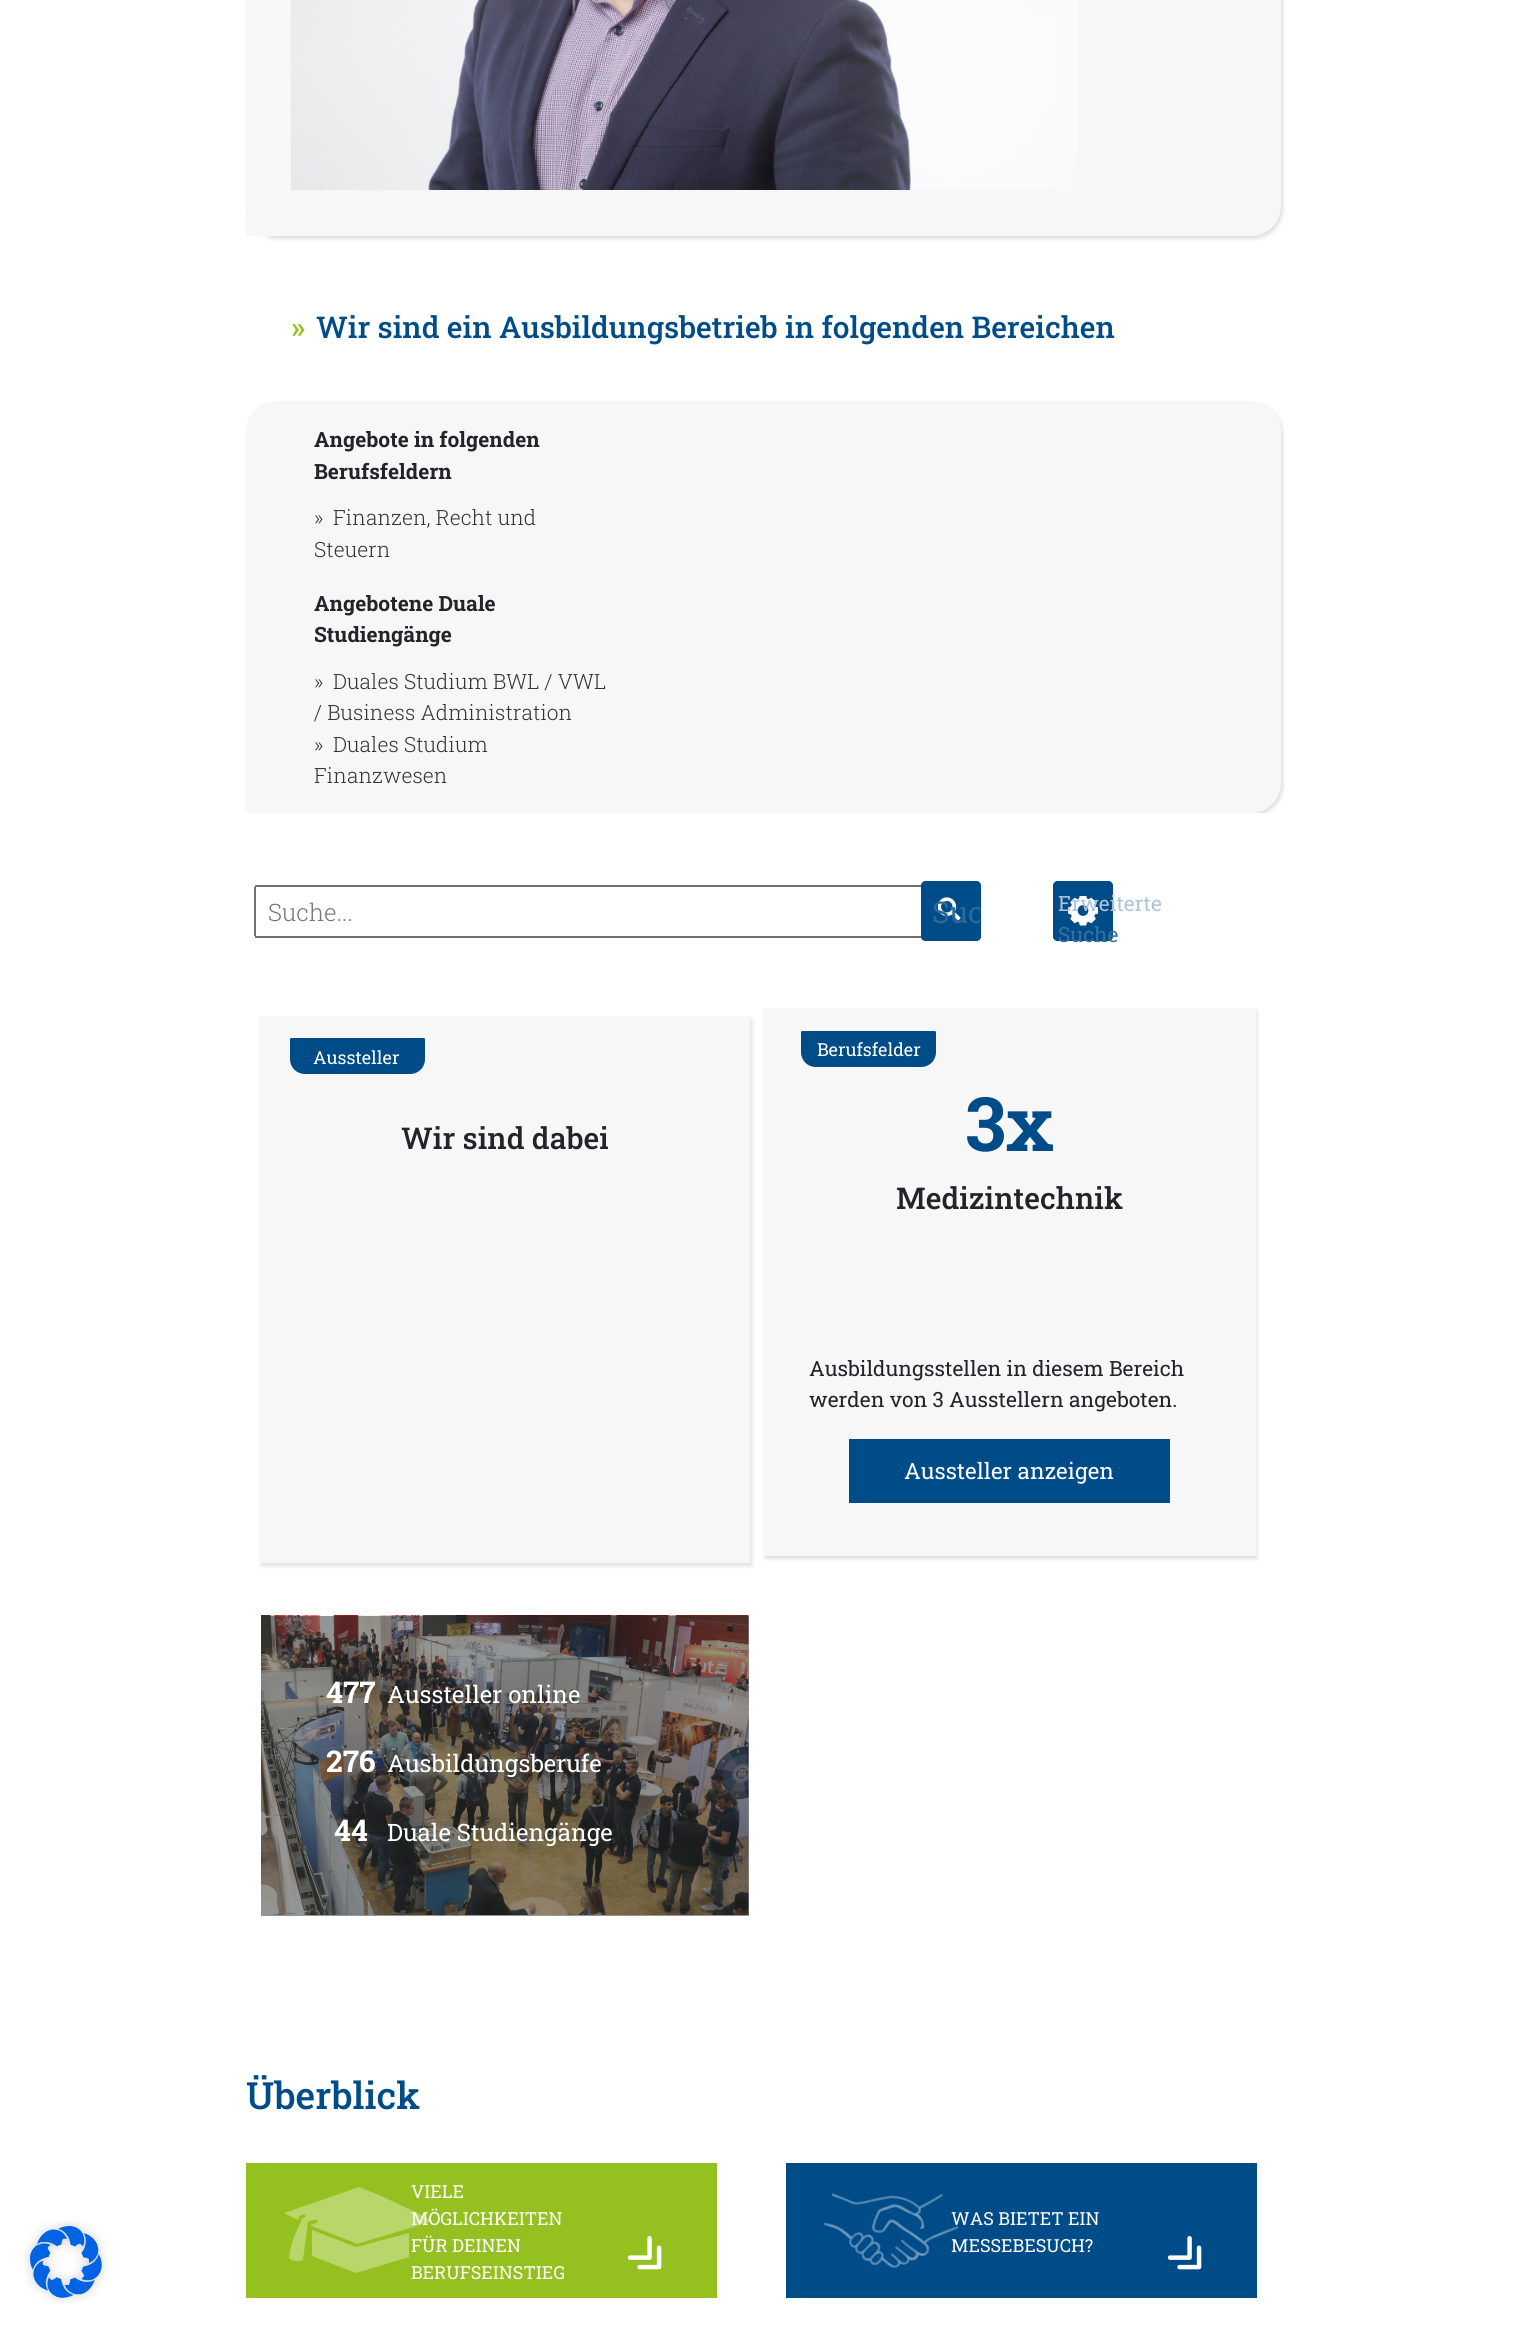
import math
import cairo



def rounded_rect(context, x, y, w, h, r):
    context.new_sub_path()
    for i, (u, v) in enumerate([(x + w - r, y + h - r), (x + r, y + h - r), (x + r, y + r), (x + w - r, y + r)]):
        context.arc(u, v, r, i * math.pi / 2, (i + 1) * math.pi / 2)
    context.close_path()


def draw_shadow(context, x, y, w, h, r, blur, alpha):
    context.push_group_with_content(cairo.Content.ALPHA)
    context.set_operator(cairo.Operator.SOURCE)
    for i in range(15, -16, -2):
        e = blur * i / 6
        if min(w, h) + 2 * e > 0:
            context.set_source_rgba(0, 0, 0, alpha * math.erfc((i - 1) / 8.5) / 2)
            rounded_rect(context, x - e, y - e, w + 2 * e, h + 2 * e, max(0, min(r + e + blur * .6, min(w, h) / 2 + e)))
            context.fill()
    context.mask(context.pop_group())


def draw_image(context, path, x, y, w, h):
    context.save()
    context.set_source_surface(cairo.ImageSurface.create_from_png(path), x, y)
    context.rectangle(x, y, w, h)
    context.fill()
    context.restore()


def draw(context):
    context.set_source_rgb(1, 1, 1)
    context.paint()
    draw_image(context, "images/1.png", 24, 2220, 84, 84)
    context.set_source_rgb(94 / 255, 94 / 255, 94 / 255)
    draw_shadow(context, 248, -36, 1035, 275, 30, 2, 0.2)
    context.set_source_rgb(247 / 255, 247 / 255, 247 / 255)
    context.new_path()
    context.move_to(246, -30)
    context.line_to(1251, -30)
    context.curve_to(1267.5, -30, 1281, -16.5, 1281, 0)
    context.line_to(1281, 206)
    context.curve_to(1281, 222.5, 1267.5, 236, 1251, 236)
    context.line_to(246, 236)
    context.close_path()
    context.fill()
    draw_image(context, "images/2.png", 291, 0, 787, 190)
    context.set_source_rgb(94 / 255, 94 / 255, 94 / 255)
    draw_shadow(context, 248, 404, 1035, 412, 30, 2, 0.2)
    context.set_source_rgb(247 / 255, 247 / 255, 247 / 255)
    context.new_path()
    context.move_to(276, 401)
    context.line_to(1251, 401)
    context.curve_to(1267.5, 401, 1281, 414.5, 1281, 431)
    context.line_to(1281, 783)
    context.curve_to(1281, 799.5, 1267.5, 813, 1251, 813)
    context.line_to(251, 813)
    context.curve_to(248, 813, 246, 811, 246, 808)
    context.line_to(246, 431)
    context.curve_to(246, 414.5, 259.5, 401, 276, 401)
    context.close_path()
    context.fill()
    context.set_source_rgb(1, 1, 1)
    context.rectangle(260, 813, 1011, 6)
    context.fill()
    context.set_source_rgb(147 / 255, 150 / 255, 152 / 255)
    context.rectangle(261, 1616, 488, 300)
    context.fill()
    context.set_source_rgb(112 / 255, 112 / 255, 112 / 255)
    context.rectangle(255, 885, 674, 2)
    context.fill()
    context.rectangle(255, 936, 674, 2)
    context.fill()
    context.rectangle(254, 887, 2, 49)
    context.fill()
    context.set_source_rgb(0, 76 / 255, 137 / 255)
    rounded_rect(context, 921, 881, 60, 60, 5)
    context.fill()
    draw_image(context, "images/3.png", 938, 897, 23, 24)
    rounded_rect(context, 922, 882, 58, 58, 4)
    context.stroke()
    rounded_rect(context, 1053, 881, 60, 60, 5)
    context.fill()
    draw_image(context, "images/4.png", 1068, 896, 30, 30)
    rounded_rect(context, 1054, 882, 58, 58, 4)
    context.stroke()
    context.set_source_rgb(94 / 255, 94 / 255, 94 / 255)
    draw_shadow(context, 261, 1019, 491, 547, 0, 2, 0.2)
    context.set_source_rgb(247 / 255, 247 / 255, 247 / 255)
    context.rectangle(260, 1016, 490, 547)
    context.fill()
    context.set_source_rgb(0, 76 / 255, 137 / 255)
    context.new_path()
    context.move_to(291.5, 1038)
    context.line_to(423.5, 1038)
    context.curve_to(424.5, 1038, 425, 1038.5, 425, 1039.5)
    context.line_to(425, 1059)
    context.curve_to(425, 1067.5, 418.5, 1074, 410, 1074)
    context.line_to(305, 1074)
    context.curve_to(296.5, 1074, 290, 1067.5, 290, 1059)
    context.line_to(290, 1039.5)
    context.curve_to(290, 1038.5, 290.5, 1038, 291.5, 1038)
    context.close_path()
    context.fill()
    context.set_source_rgb(94 / 255, 94 / 255, 94 / 255)
    draw_shadow(context, 765, 1011, 492, 548, 0, 2, 0.2)
    context.set_source_rgb(247 / 255, 247 / 255, 247 / 255)
    context.rectangle(764, 1008, 492, 548)
    context.fill()
    context.set_source_rgb(0, 76 / 255, 137 / 255)
    context.new_path()
    context.move_to(802.5, 1031)
    context.line_to(934.5, 1031)
    context.curve_to(935.5, 1031, 936, 1031.5, 936, 1032.5)
    context.line_to(936, 1052)
    context.curve_to(936, 1060.5, 929.5, 1067, 921, 1067)
    context.line_to(816, 1067)
    context.curve_to(807.5, 1067, 801, 1060.5, 801, 1052)
    context.line_to(801, 1032.5)
    context.curve_to(801, 1031.5, 801.5, 1031, 802.5, 1031)
    context.close_path()
    context.fill()
    context.rectangle(849, 1439, 321, 64)
    context.fill()
    draw_image(context, "images/5.png", 261, 1615, 488, 300)
    context.set_source_rgb(148 / 255, 193 / 255, 31 / 255)
    context.rectangle(246, 2163, 471, 135)
    context.fill()
    context.set_source_rgb(184 / 255, 214 / 255, 106 / 255)
    context.set_fill_rule(cairo.FillRule.EVEN_ODD)
    context.new_path()
    context.move_to(284, 2213)
    context.line_to(359, 2187)
    context.line_to(379, 2195)
    context.curve_to(379, 2195, 416, 2212, 433, 2221)
    context.line_to(357, 2244)
    context.curve_to(342, 2237, 324, 2232, 310, 2225)
    context.curve_to(313, 2224, 318, 2223, 318, 2221)
    context.curve_to(315, 2218, 311, 2221, 308, 2222)
    context.line_to(303, 2260)
    context.curve_to(297, 2262, 292, 2261, 289, 2258)
    context.curve_to(290, 2244, 296, 2232, 302, 2219)
    context.line_to(305, 2217)
    context.curve_to(308, 2214, 300, 2214, 299, 2217)
    context.line_to(298, 2220)
    context.close_path()
    context.fill()
    context.set_fill_rule(cairo.FillRule.WINDING)
    context.new_path()
    context.move_to(409, 2257)
    context.line_to(356, 2273)
    context.line_to(312, 2256)
    context.line_to(312, 2230)
    context.line_to(356, 2247)
    context.line_to(409, 2233)
    context.close_path()
    context.fill()
    draw_image(context, "images/6.png", 627, 2236, 35, 34)
    context.set_source_rgb(0, 76 / 255, 137 / 255)
    context.rectangle(786, 2163, 471, 135)
    context.fill()
    draw_image(context, "images/7.png", 824, 2193, 135, 75)
    draw_image(context, "images/8.png", 1167, 2236, 35, 34)
    context.select_font_face("Roboto Slab Medium")
    context.set_font_size(30)
    context.set_source_rgb(148 / 255, 193 / 255, 31 / 255)
    context.move_to(291, 338)
    context.show_text("»")
    context.set_source_rgb(0, 76 / 255, 137 / 255)
    context.move_to(316, 338)
    context.show_text("Wir sind ein Ausbildungsbetrieb in folgenden Bereichen")
    context.select_font_face("Roboto Slab", cairo.FontSlant.NORMAL, cairo.FontWeight.BOLD)
    context.set_font_size(21)
    context.set_source_rgb(33 / 255, 37 / 255, 41 / 255)
    context.move_to(314, 447)
    context.show_text("Angebote in folgenden")
    context.move_to(314, 479)
    context.show_text("Berufsfeldern")
    context.select_font_face("Roboto Slab Light")
    context.set_source_rgb(51 / 255, 51 / 255, 51 / 255)
    context.move_to(314, 525)
    context.show_text("»")
    context.move_to(333, 525)
    context.show_text("Finanzen, Recht und")
    context.move_to(314, 557)
    context.show_text("Steuern")
    context.select_font_face("Roboto Slab", cairo.FontSlant.NORMAL, cairo.FontWeight.BOLD)
    context.set_source_rgb(33 / 255, 37 / 255, 41 / 255)
    context.move_to(314, 611)
    context.show_text("Angebotene Duale")
    context.move_to(314, 642)
    context.show_text("Studiengänge")
    context.select_font_face("Roboto Slab Light")
    context.set_source_rgb(51 / 255, 51 / 255, 51 / 255)
    context.move_to(314, 689)
    context.show_text("»")
    context.move_to(333, 689)
    context.show_text("Duales Studium BWL / VWL")
    context.move_to(314, 720)
    context.show_text("/ Business Administration")
    context.move_to(314, 752)
    context.show_text("»")
    context.move_to(333, 752)
    context.show_text("Duales Studium")
    context.move_to(314, 783)
    context.show_text("Finanzwesen")
    context.set_font_size(24)
    context.set_source_rgb(117 / 255, 117 / 255, 117 / 255)
    context.move_to(268, 921)
    context.show_text("Suche...")
    context.save()
    rounded_rect(context, 923, 882, 57, 57, 3)
    context.clip()
    context.select_font_face("Roboto Slab")
    context.set_font_size(30)
    context.set_source_rgb(41 / 255, 105 / 255, 156 / 255)
    context.move_to(932, 923)
    context.show_text("Suc")
    context.restore()
    context.select_font_face("Roboto Slab")
    context.set_font_size(21)
    context.set_source_rgb(173 / 255, 197 / 255, 217 / 255)
    context.move_to(1058, 911)
    context.show_text("Erweiterte")
    context.set_source_rgb(52 / 255, 113 / 255, 161 / 255)
    context.move_to(1058, 942)
    context.show_text("Suche")
    context.set_font_size(18)
    context.set_source_rgb(1, 1, 1)
    context.move_to(313, 1064)
    context.show_text("Aussteller")
    context.select_font_face("Roboto Slab Medium")
    context.set_font_size(30)
    context.set_source_rgb(33 / 255, 37 / 255, 41 / 255)
    context.move_to(401, 1149)
    context.show_text("Wir sind dabei")
    context.select_font_face("Roboto Slab")
    context.set_font_size(18)
    context.set_source_rgb(1, 1, 1)
    context.move_to(817, 1056)
    context.show_text("Berufsfelder")
    context.select_font_face("Roboto Slab", cairo.FontSlant.NORMAL, cairo.FontWeight.BOLD)
    context.set_font_size(75)
    context.set_source_rgb(0, 76 / 255, 137 / 255)
    context.move_to(965, 1151)
    context.show_text("3x")
    context.select_font_face("Roboto Slab Medium")
    context.set_font_size(30)
    context.set_source_rgb(33 / 255, 37 / 255, 41 / 255)
    context.move_to(896, 1209)
    context.show_text("Medizintechnik")
    context.select_font_face("Roboto Slab")
    context.set_font_size(21)
    context.move_to(809, 1376)
    context.show_text("Ausbildungsstellen in diesem Bereich")
    context.move_to(809, 1407)
    context.show_text("werden von 3 Ausstellern angeboten.")
    context.set_font_size(22.5)
    context.set_source_rgb(1, 1, 1)
    context.move_to(904, 1479)
    context.show_text("Aussteller anzeigen")
    context.select_font_face("Roboto Slab", cairo.FontSlant.NORMAL, cairo.FontWeight.BOLD)
    context.set_font_size(30)
    context.move_to(326, 1703)
    context.show_text("477")
    context.select_font_face("Roboto Slab")
    context.set_font_size(24)
    context.move_to(387, 1703)
    context.show_text("Aussteller online")
    context.select_font_face("Roboto Slab", cairo.FontSlant.NORMAL, cairo.FontWeight.BOLD)
    context.set_font_size(30)
    context.move_to(326, 1772)
    context.show_text("276")
    context.select_font_face("Roboto Slab")
    context.set_font_size(24)
    context.move_to(387, 1772)
    context.show_text("Ausbildungsberufe")
    context.select_font_face("Roboto Slab", cairo.FontSlant.NORMAL, cairo.FontWeight.BOLD)
    context.set_font_size(30)
    context.move_to(334, 1841)
    context.show_text("44")
    context.select_font_face("Roboto Slab")
    context.set_font_size(24)
    context.move_to(387, 1841)
    context.show_text("Duale Studiengänge")
    context.select_font_face("Roboto Slab Medium")
    context.set_font_size(37.5)
    context.set_source_rgb(0, 76 / 255, 137 / 255)
    context.move_to(246, 2109)
    context.show_text("Überblick")
    context.select_font_face("Roboto Slab")
    context.set_font_size(18)
    context.set_source_rgb(1, 1, 1)
    context.move_to(411, 2198)
    context.show_text("VIELE")
    context.move_to(411, 2225)
    context.show_text("MÖGLICHKEITEN")
    context.move_to(411, 2252)
    context.show_text("FÜR DEINEN")
    context.move_to(411, 2279)
    context.show_text("BERUFSEINSTIEG")
    context.move_to(951, 2225)
    context.show_text("WAS BIETET EIN")
    context.move_to(951, 2252)
    context.show_text("MESSEBESUCH?")


surface = cairo.ImageSurface(cairo.Format.RGB24, 1526, 2327)
context = cairo.Context(surface)
options = cairo.FontOptions()
options.set_hint_metrics(cairo.HintMetrics.OFF)
options.set_hint_style(cairo.HintStyle.NONE)
context.set_font_options(options)
context.set_miter_limit(4)
draw(context)
surface.write_to_png("out.png")
